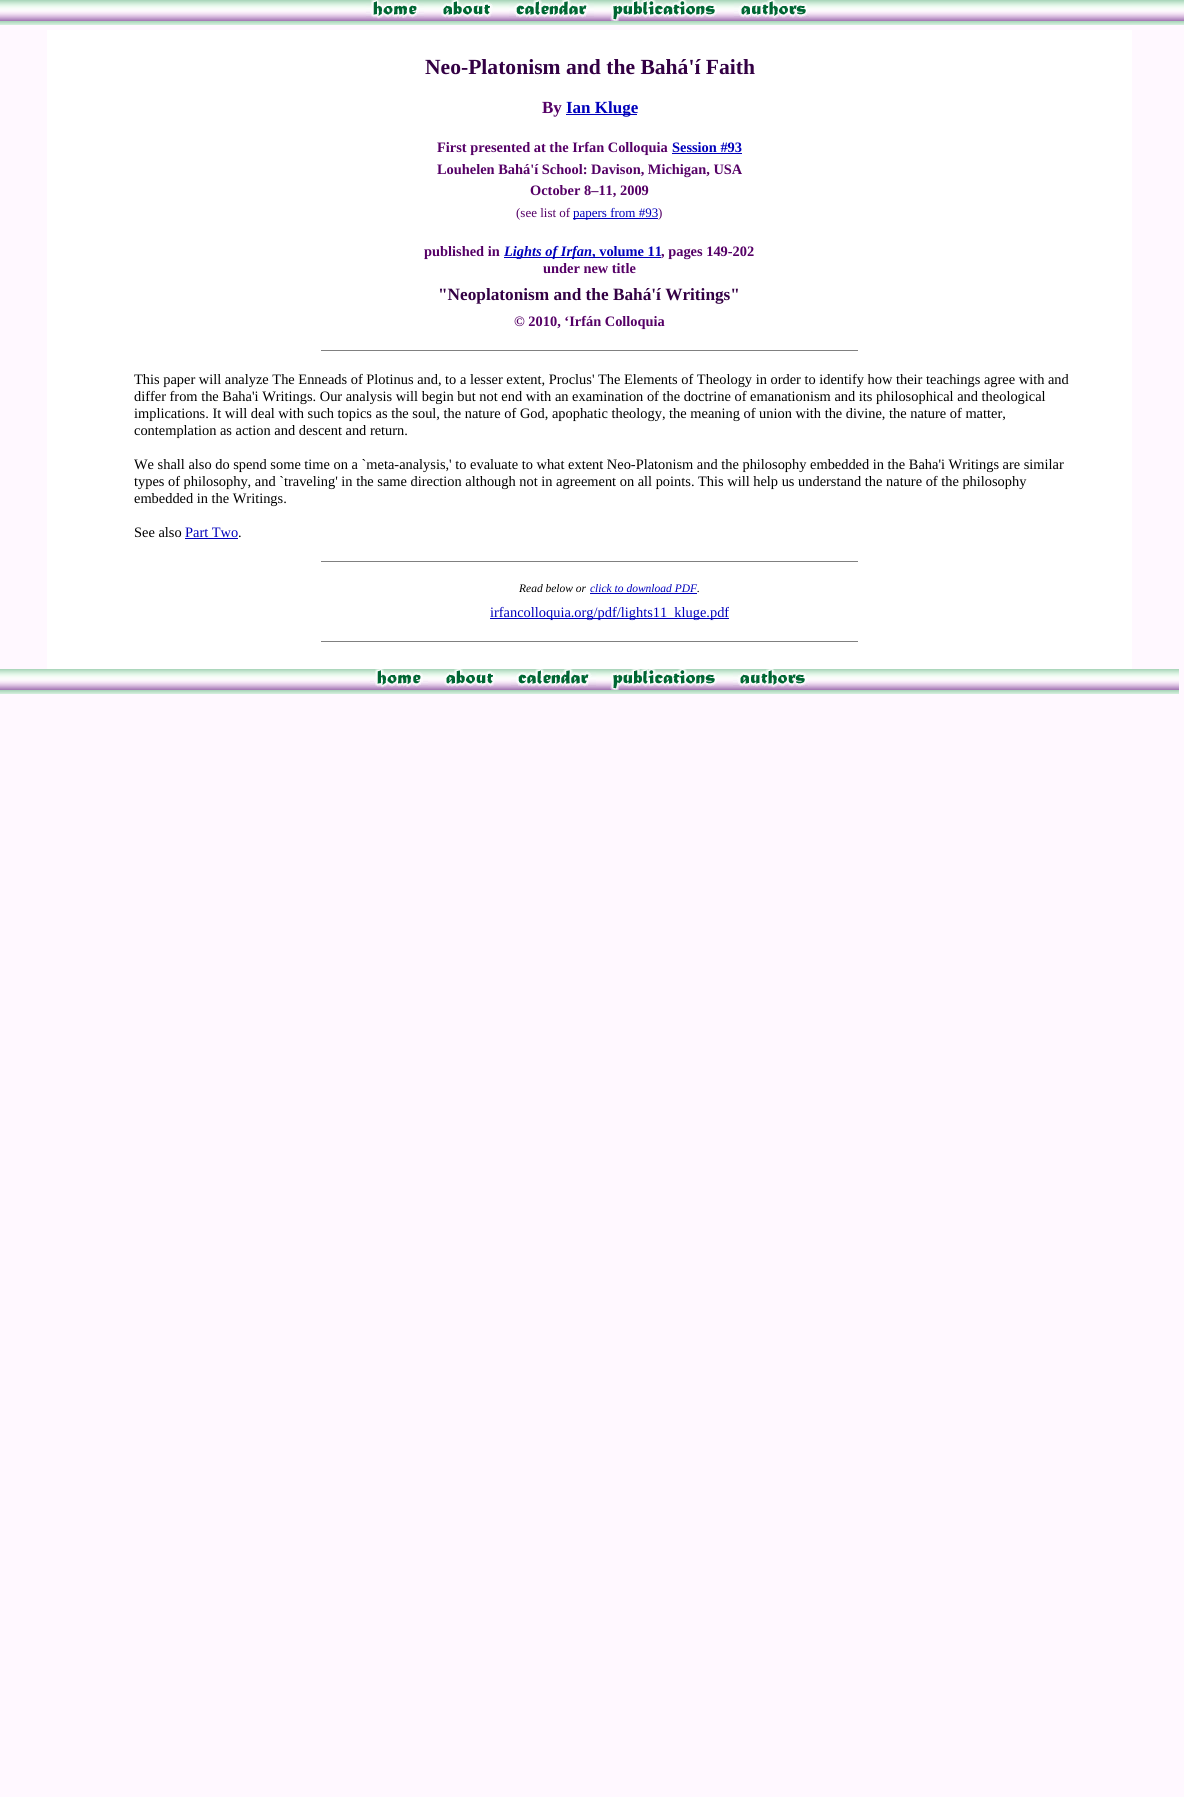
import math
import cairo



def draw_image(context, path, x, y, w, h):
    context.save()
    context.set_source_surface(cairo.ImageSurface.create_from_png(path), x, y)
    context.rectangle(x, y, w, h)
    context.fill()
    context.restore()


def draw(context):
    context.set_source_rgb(1, 248 / 255, 1)
    context.paint()
    draw_image(context, "images/1.png", 0, 0, 1184, 25)
    draw_image(context, "images/2.png", 366, 0, 58, 19)
    draw_image(context, "images/3.png", 441, 0, 52, 18)
    draw_image(context, "images/4.png", 509, 0, 85, 18)
    draw_image(context, "images/5.png", 610, 0, 107, 21)
    draw_image(context, "images/6.png", 734, 0, 76, 19)
    context.set_source_rgb(1, 1, 1)
    context.rectangle(47, 30, 1085, 639)
    context.fill()
    context.set_source_rgb(0, 0, 187 / 255)
    context.rectangle(566, 114, 71, 1)
    context.fill()
    context.rectangle(672, 153, 70, 1)
    context.fill()
    context.rectangle(573, 218, 85, 1)
    context.fill()
    context.rectangle(504, 257, 157, 1)
    context.fill()
    context.set_source_rgb(128 / 255, 128 / 255, 128 / 255)
    context.rectangle(321, 350, 537, 1)
    context.fill()
    context.set_source_rgb(0, 0, 187 / 255)
    context.rectangle(185, 538, 53, 1)
    context.fill()
    context.set_source_rgb(128 / 255, 128 / 255, 128 / 255)
    context.rectangle(321, 561, 537, 1)
    context.fill()
    context.set_source_rgb(0, 0, 187 / 255)
    context.rectangle(590, 593, 107, 1)
    context.fill()
    context.rectangle(490, 618, 239, 1)
    context.fill()
    context.set_source_rgb(128 / 255, 128 / 255, 128 / 255)
    context.rectangle(321, 641, 537, 1)
    context.fill()
    draw_image(context, "images/7.png", 0, 669, 1179, 25)
    draw_image(context, "images/2.png", 370, 669, 58, 19)
    draw_image(context, "images/3.png", 444, 669, 52, 18)
    draw_image(context, "images/4.png", 511, 669, 85, 18)
    draw_image(context, "images/5.png", 610, 669, 107, 21)
    draw_image(context, "images/6.png", 733, 669, 76, 19)
    context.select_font_face("Liberation Serif", cairo.FontSlant.NORMAL, cairo.FontWeight.BOLD)
    context.set_font_size(21.6)
    context.set_source_rgb(51 / 255, 0, 68 / 255)
    context.move_to(425, 74)
    context.show_text("Neo-Platonism and the Bahá'í Faith")
    context.set_font_size(17)
    context.set_source_rgb(85 / 255, 0, 102 / 255)
    context.move_to(542, 113)
    context.show_text("By")
    context.set_source_rgb(0, 0, 187 / 255)
    context.move_to(566, 113)
    context.show_text("Ian Kluge")
    context.set_font_size(14.4)
    context.set_source_rgb(85 / 255, 0, 102 / 255)
    context.move_to(437, 152)
    context.show_text("First presented at the Irfan Colloquia")
    context.set_source_rgb(0, 0, 187 / 255)
    context.move_to(672, 152)
    context.show_text("Session #93")
    context.set_source_rgb(85 / 255, 0, 102 / 255)
    context.move_to(437, 174)
    context.show_text("Louhelen Bahá'í School: Davison, Michigan, USA")
    context.move_to(530, 195)
    context.show_text("October 8–11, 2009")
    context.select_font_face("Liberation Serif")
    context.set_font_size(13)
    context.move_to(516, 217)
    context.show_text("(see list of")
    context.set_source_rgb(0, 0, 187 / 255)
    context.move_to(573, 217)
    context.show_text("papers from #93")
    context.set_source_rgb(85 / 255, 0, 102 / 255)
    context.move_to(658, 217)
    context.show_text(")")
    context.select_font_face("Liberation Serif", cairo.FontSlant.NORMAL, cairo.FontWeight.BOLD)
    context.set_font_size(14.4)
    context.move_to(424, 256)
    context.show_text("published in")
    context.select_font_face("Liberation Serif", cairo.FontSlant.ITALIC, cairo.FontWeight.BOLD)
    context.set_source_rgb(0, 0, 187 / 255)
    context.move_to(504, 256)
    context.show_text("Lights of Irfan")
    context.select_font_face("Liberation Serif", cairo.FontSlant.NORMAL, cairo.FontWeight.BOLD)
    context.move_to(592, 256)
    context.show_text(", volume 11")
    context.set_source_rgb(85 / 255, 0, 102 / 255)
    context.move_to(661, 256)
    context.show_text(", pages 149-202")
    context.move_to(543, 273)
    context.show_text("under new title")
    context.set_font_size(17.25)
    context.set_source_rgb(51 / 255, 0, 68 / 255)
    context.move_to(438, 300)
    context.show_text("\"Neoplatonism and the Bahá'í Writings\"")
    context.set_font_size(14.4)
    context.set_source_rgb(85 / 255, 0, 102 / 255)
    context.move_to(514, 326)
    context.show_text("© 2010, ‘Irfán Colloquia")
    context.select_font_face("Liberation Serif")
    context.set_source_rgb(0, 0, 0)
    context.move_to(134, 384)
    context.show_text("This paper will analyze The Enneads of Plotinus and, to a lesser extent, Proclus' The Elements of Theology in order to identify how their teachings agree with and")
    context.move_to(134, 401)
    context.show_text("differ from the Baha'i Writings. Our analysis will begin but not end with an examination of the doctrine of emanationism and its philosophical and theological")
    context.move_to(134, 418)
    context.show_text("implications. It will deal with such topics as the soul, the nature of God, apophatic theology, the meaning of union with the divine, the nature of matter,")
    context.move_to(134, 435)
    context.show_text("contemplation as action and descent and return.")
    context.move_to(134, 469)
    context.show_text("We shall also do spend some time on a `meta-analysis,' to evaluate to what extent Neo-Platonism and the philosophy embedded in the Baha'i Writings are similar")
    context.move_to(134, 486)
    context.show_text("types of philosophy, and `traveling' in the same direction although not in agreement on all points. This will help us understand the nature of the philosophy")
    context.move_to(134, 503)
    context.show_text("embedded in the Writings.")
    context.move_to(134, 537)
    context.show_text("See also")
    context.set_source_rgb(0, 0, 187 / 255)
    context.move_to(185, 537)
    context.show_text("Part Two")
    context.set_source_rgb(0, 0, 0)
    context.move_to(238, 537)
    context.show_text(".")
    context.select_font_face("Liberation Serif", cairo.FontSlant.ITALIC)
    context.set_font_size(11.5)
    context.move_to(519, 592)
    context.show_text("Read below or")
    context.set_source_rgb(0, 0, 187 / 255)
    context.move_to(590, 592)
    context.show_text("click to download PDF")
    context.set_source_rgb(0, 0, 0)
    context.move_to(697, 592)
    context.show_text(".")
    context.select_font_face("Liberation Serif")
    context.set_font_size(14.4)
    context.set_source_rgb(0, 0, 187 / 255)
    context.move_to(490, 617)
    context.show_text("irfancolloquia.org/pdf/lights11_kluge.pdf")


surface = cairo.ImageSurface(cairo.Format.RGB24, 1184, 1797)
context = cairo.Context(surface)
options = cairo.FontOptions()
options.set_hint_metrics(cairo.HintMetrics.OFF)
options.set_hint_style(cairo.HintStyle.NONE)
context.set_font_options(options)
context.set_miter_limit(4)
draw(context)
surface.write_to_png("out.png")
